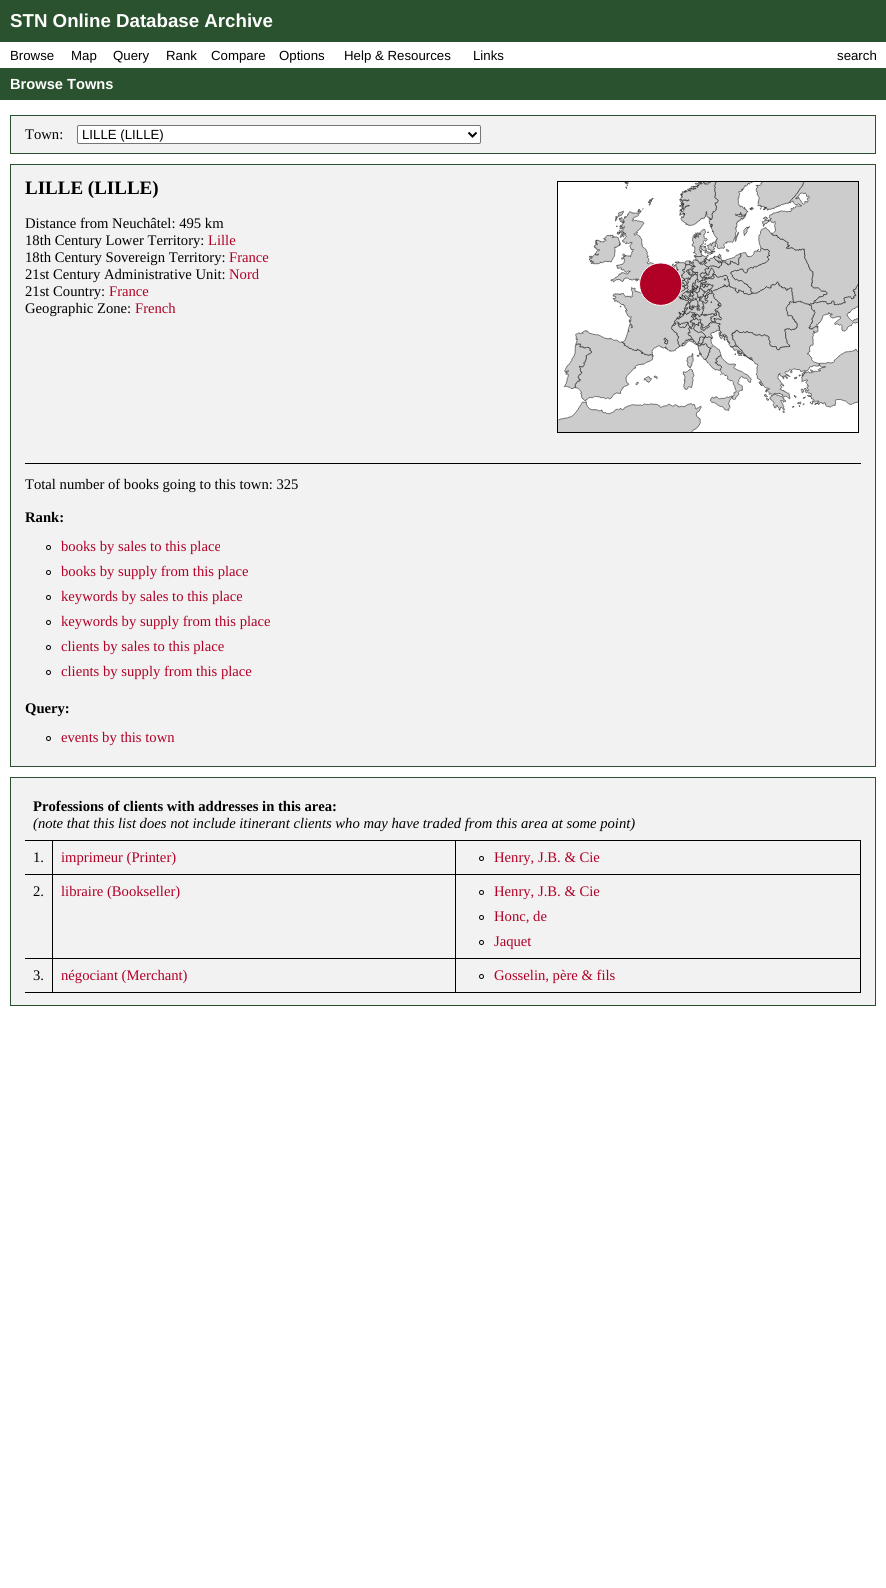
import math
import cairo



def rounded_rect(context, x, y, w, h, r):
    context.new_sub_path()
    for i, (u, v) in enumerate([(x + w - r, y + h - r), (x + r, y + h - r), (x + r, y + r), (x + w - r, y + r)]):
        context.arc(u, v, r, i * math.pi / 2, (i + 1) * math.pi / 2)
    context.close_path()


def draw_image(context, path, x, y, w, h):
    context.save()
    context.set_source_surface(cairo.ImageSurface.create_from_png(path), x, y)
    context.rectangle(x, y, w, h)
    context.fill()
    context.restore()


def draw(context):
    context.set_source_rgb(1, 1, 1)
    context.paint()
    context.set_source_rgb(43 / 255, 82 / 255, 46 / 255)
    context.rectangle(0, 0, 886, 42)
    context.fill()
    context.rectangle(0, 68, 886, 32)
    context.fill()
    context.set_source_rgb(242 / 255, 242 / 255, 242 / 255)
    context.rectangle(10.5, 115.5, 865, 38)
    context.fill_preserve()
    context.set_source_rgb(43 / 255, 82 / 255, 46 / 255)
    context.set_line_width(1)
    context.stroke()
    context.set_source_rgb(1, 1, 1)
    rounded_rect(context, 77.5, 125.5, 403, 18, 1.5)
    context.fill_preserve()
    context.set_source_rgb(118 / 255, 118 / 255, 118 / 255)
    context.stroke()
    context.new_path()
    context.move_to(468.5, 132.5)
    context.line_to(472.5, 136.5)
    context.line_to(476.5, 132.5)
    context.set_source_rgb(0, 0, 0)
    context.set_line_width(2)
    context.stroke()
    context.set_source_rgb(242 / 255, 242 / 255, 242 / 255)
    context.rectangle(10.5, 164.5, 865, 602)
    context.fill_preserve()
    context.set_source_rgb(43 / 255, 82 / 255, 46 / 255)
    context.set_line_width(1)
    context.stroke()
    context.set_source_rgb(1, 1, 1)
    context.rectangle(557.5, 181.5, 301, 251)
    context.fill_preserve()
    context.set_source_rgb(0, 0, 0)
    context.stroke()
    draw_image(context, "images/1.png", 558, 182, 300, 250)
    context.rectangle(25, 463, 836, 1)
    context.fill()
    context.arc(48.5, 547.5, 2, 0, 2 * math.pi)
    context.stroke()
    context.arc(48.5, 572.5, 2, 0, 2 * math.pi)
    context.stroke()
    context.arc(48.5, 597.5, 2, 0, 2 * math.pi)
    context.stroke()
    context.arc(48.5, 622.5, 2, 0, 2 * math.pi)
    context.stroke()
    context.arc(48.5, 647.5, 2, 0, 2 * math.pi)
    context.stroke()
    context.arc(48.5, 672.5, 2, 0, 2 * math.pi)
    context.stroke()
    context.arc(48.5, 738.5, 2, 0, 2 * math.pi)
    context.stroke()
    context.set_source_rgb(242 / 255, 242 / 255, 242 / 255)
    context.rectangle(10.5, 777.5, 865, 228)
    context.fill_preserve()
    context.set_source_rgb(43 / 255, 82 / 255, 46 / 255)
    context.stroke()
    context.set_source_rgb(0, 0, 0)
    context.rectangle(860, 840, 1, 153)
    context.fill()
    context.rectangle(455, 992, 406, 1)
    context.fill()
    context.rectangle(455, 958, 1, 35)
    context.fill()
    context.rectangle(455, 958, 406, 1)
    context.fill()
    context.rectangle(455, 874, 1, 85)
    context.fill()
    context.rectangle(455, 874, 406, 1)
    context.fill()
    context.rectangle(455, 840, 1, 35)
    context.fill()
    context.rectangle(52, 992, 404, 1)
    context.fill()
    context.rectangle(52, 958, 1, 35)
    context.fill()
    context.rectangle(52, 958, 404, 1)
    context.fill()
    context.rectangle(52, 874, 1, 85)
    context.fill()
    context.rectangle(52, 874, 404, 1)
    context.fill()
    context.rectangle(52, 840, 1, 35)
    context.fill()
    context.rectangle(25, 840, 836, 1)
    context.fill()
    context.rectangle(25, 874, 28, 1)
    context.fill()
    context.arc(481.5, 858.5, 2, 0, 2 * math.pi)
    context.stroke()
    context.rectangle(25, 958, 28, 1)
    context.fill()
    context.arc(481.5, 892.5, 2, 0, 2 * math.pi)
    context.stroke()
    context.arc(481.5, 917.5, 2, 0, 2 * math.pi)
    context.stroke()
    context.arc(481.5, 942.5, 2, 0, 2 * math.pi)
    context.stroke()
    context.rectangle(25, 992, 28, 1)
    context.fill()
    context.arc(481.5, 976.5, 2, 0, 2 * math.pi)
    context.stroke()
    context.select_font_face("Liberation Sans", cairo.FontSlant.NORMAL, cairo.FontWeight.BOLD)
    context.set_font_size(18.7)
    context.set_source_rgb(1, 1, 1)
    context.move_to(10, 27)
    context.show_text("STN Online Database Archive")
    context.select_font_face("Liberation Sans")
    context.set_font_size(13.25)
    context.set_source_rgb(0, 0, 0)
    context.move_to(10, 60)
    context.show_text("Browse")
    context.move_to(71, 60)
    context.show_text("Map")
    context.move_to(113, 60)
    context.show_text("Query")
    context.move_to(166, 60)
    context.show_text("Rank")
    context.move_to(211, 60)
    context.show_text("Compare")
    context.move_to(279, 60)
    context.show_text("Options")
    context.move_to(344, 60)
    context.show_text("Help & Resources")
    context.move_to(473, 60)
    context.show_text("Links")
    context.move_to(837, 60)
    context.show_text("search")
    context.select_font_face("Liberation Sans", cairo.FontSlant.NORMAL, cairo.FontWeight.BOLD)
    context.set_font_size(14.65)
    context.set_source_rgb(1, 1, 1)
    context.move_to(10, 89)
    context.show_text("Browse Towns")
    context.select_font_face("Liberation Serif")
    context.set_source_rgb(0, 0, 0)
    context.move_to(25, 139)
    context.show_text("Town:")
    context.select_font_face("Liberation Sans")
    context.set_font_size(13.25)
    context.move_to(82, 139)
    context.show_text("LILLE (LILLE)")
    context.select_font_face("Liberation Serif", cairo.FontSlant.NORMAL, cairo.FontWeight.BOLD)
    context.set_font_size(19)
    context.move_to(25, 194)
    context.show_text("LILLE (LILLE)")
    context.select_font_face("Liberation Serif")
    context.set_font_size(14.65)
    context.move_to(25, 228)
    context.show_text("Distance from Neuchâtel: 495 km")
    context.move_to(25, 245)
    context.show_text("18th Century Lower Territory:")
    context.set_source_rgb(177 / 255, 0, 38 / 255)
    context.move_to(208, 245)
    context.show_text("Lille")
    context.set_source_rgb(0, 0, 0)
    context.move_to(25, 262)
    context.show_text("18th Century Sovereign Territory:")
    context.set_source_rgb(177 / 255, 0, 38 / 255)
    context.move_to(229, 262)
    context.show_text("France")
    context.set_source_rgb(0, 0, 0)
    context.move_to(25, 279)
    context.show_text("21st Century Administrative Unit:")
    context.set_source_rgb(177 / 255, 0, 38 / 255)
    context.move_to(229, 279)
    context.show_text("Nord")
    context.set_source_rgb(0, 0, 0)
    context.move_to(25, 296)
    context.show_text("21st Country:")
    context.set_source_rgb(177 / 255, 0, 38 / 255)
    context.move_to(109, 296)
    context.show_text("France")
    context.set_source_rgb(0, 0, 0)
    context.move_to(25, 313)
    context.show_text("Geographic Zone:")
    context.set_source_rgb(177 / 255, 0, 38 / 255)
    context.move_to(135, 313)
    context.show_text("French")
    context.set_source_rgb(0, 0, 0)
    context.move_to(25, 489)
    context.show_text("Total number of books going to this town: 325")
    context.select_font_face("Liberation Serif", cairo.FontSlant.NORMAL, cairo.FontWeight.BOLD)
    context.move_to(25, 522)
    context.show_text("Rank:")
    context.select_font_face("Liberation Serif")
    context.set_source_rgb(177 / 255, 0, 38 / 255)
    context.move_to(61, 551)
    context.show_text("books by sales to this place")
    context.move_to(61, 576)
    context.show_text("books by supply from this place")
    context.move_to(61, 601)
    context.show_text("keywords by sales to this place")
    context.move_to(61, 626)
    context.show_text("keywords by supply from this place")
    context.move_to(61, 651)
    context.show_text("clients by sales to this place")
    context.move_to(61, 676)
    context.show_text("clients by supply from this place")
    context.select_font_face("Liberation Serif", cairo.FontSlant.NORMAL, cairo.FontWeight.BOLD)
    context.set_source_rgb(0, 0, 0)
    context.move_to(25, 713)
    context.show_text("Query:")
    context.select_font_face("Liberation Serif")
    context.set_source_rgb(177 / 255, 0, 38 / 255)
    context.move_to(61, 742)
    context.show_text("events by this town")
    context.select_font_face("Liberation Serif", cairo.FontSlant.NORMAL, cairo.FontWeight.BOLD)
    context.set_source_rgb(0, 0, 0)
    context.move_to(33, 811)
    context.show_text("Professions of clients with addresses in this area:")
    context.select_font_face("Liberation Serif", cairo.FontSlant.ITALIC)
    context.move_to(33, 828)
    context.show_text("(note that this list does not include itinerant clients who may have traded from this area at some point)")
    context.select_font_face("Liberation Serif")
    context.move_to(33, 862)
    context.show_text("1.")
    context.set_source_rgb(177 / 255, 0, 38 / 255)
    context.move_to(61, 862)
    context.show_text("imprimeur (Printer)")
    context.move_to(494, 862)
    context.show_text("Henry, J.B. & Cie")
    context.set_source_rgb(0, 0, 0)
    context.move_to(33, 896)
    context.show_text("2.")
    context.set_source_rgb(177 / 255, 0, 38 / 255)
    context.move_to(61, 896)
    context.show_text("libraire (Bookseller)")
    context.move_to(494, 896)
    context.show_text("Henry, J.B. & Cie")
    context.move_to(494, 921)
    context.show_text("Honc, de")
    context.move_to(494, 946)
    context.show_text("Jaquet")
    context.set_source_rgb(0, 0, 0)
    context.move_to(33, 980)
    context.show_text("3.")
    context.set_source_rgb(177 / 255, 0, 38 / 255)
    context.move_to(61, 980)
    context.show_text("négociant (Merchant)")
    context.move_to(494, 980)
    context.show_text("Gosselin, père & fils")


surface = cairo.ImageSurface(cairo.Format.RGB24, 886, 1588)
context = cairo.Context(surface)
options = cairo.FontOptions()
options.set_hint_metrics(cairo.HintMetrics.OFF)
options.set_hint_style(cairo.HintStyle.NONE)
context.set_font_options(options)
context.set_miter_limit(4)
draw(context)
surface.write_to_png("out.png")
